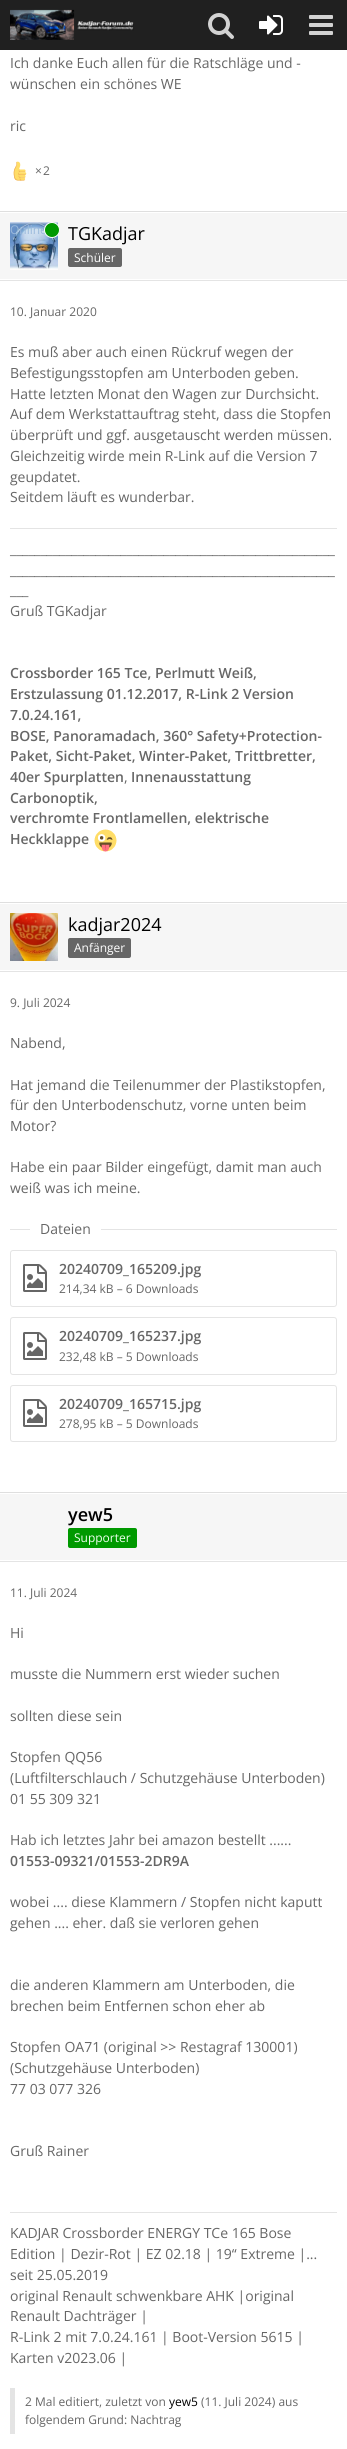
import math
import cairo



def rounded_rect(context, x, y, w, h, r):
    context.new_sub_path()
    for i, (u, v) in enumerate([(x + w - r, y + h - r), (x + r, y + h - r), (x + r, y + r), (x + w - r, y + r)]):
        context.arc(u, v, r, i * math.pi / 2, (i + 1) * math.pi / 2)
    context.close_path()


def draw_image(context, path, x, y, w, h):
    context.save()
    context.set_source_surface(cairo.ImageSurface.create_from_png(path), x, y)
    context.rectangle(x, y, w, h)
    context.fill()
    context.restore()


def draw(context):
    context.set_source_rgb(1, 1, 1)
    context.paint()
    context.set_source_rgb(32 / 255, 32 / 255, 32 / 255)
    context.rectangle(0, 0, 347, 50)
    context.fill()
    draw_image(context, "images/1.png", 10, 9, 124, 31)
    draw_image(context, "images/2.png", 208, 13, 26, 26)
    draw_image(context, "images/3.png", 259, 15, 24, 20)
    draw_image(context, "images/4.png", 309, 15, 24, 20)
    draw_image(context, "images/5.png", 13, 161, 14, 20)
    context.set_source_rgb(246 / 255, 246 / 255, 246 / 255)
    context.rectangle(0, 213, 347, 66)
    context.fill()
    context.set_source_rgb(223 / 255, 223 / 255, 223 / 255)
    context.rectangle(0, 211, 347, 1)
    context.fill()
    context.set_source_rgb(228 / 255, 228 / 255, 228 / 255)
    context.rectangle(0, 280, 347, 1)
    context.fill()
    draw_image(context, "images/6.png", 10, 222, 48, 48)
    context.set_source_rgb(102 / 255, 102 / 255, 102 / 255)
    rounded_rect(context, 68, 248, 54, 19, 2)
    context.fill()
    context.set_source_rgb(228 / 255, 228 / 255, 228 / 255)
    context.rectangle(10, 528, 327, 1)
    context.fill()
    draw_image(context, "images/7.png", 94, 829, 23, 23)
    context.set_source_rgb(246 / 255, 246 / 255, 246 / 255)
    context.rectangle(0, 904, 347, 66)
    context.fill()
    context.set_source_rgb(223 / 255, 223 / 255, 223 / 255)
    context.rectangle(0, 902, 347, 1)
    context.fill()
    context.set_source_rgb(228 / 255, 228 / 255, 228 / 255)
    context.rectangle(0, 971, 347, 1)
    context.fill()
    draw_image(context, "images/8.png", 10, 913, 48, 48)
    context.set_source_rgb(102 / 255, 102 / 255, 102 / 255)
    rounded_rect(context, 68, 938, 63, 20, 2)
    context.fill()
    context.set_source_rgb(228 / 255, 228 / 255, 228 / 255)
    context.rectangle(10, 1229, 20, 1)
    context.fill()
    context.rectangle(101, 1229, 236, 1)
    context.fill()
    rounded_rect(context, 10.5, 1250.5, 326, 56, 2.5)
    context.set_line_width(1)
    context.stroke()
    draw_image(context, "images/9.png", 23, 1264, 24, 28)
    rounded_rect(context, 10.5, 1317.5, 326, 57, 2.5)
    context.stroke()
    draw_image(context, "images/9.png", 23, 1332, 24, 28)
    rounded_rect(context, 10.5, 1385.5, 326, 56, 2.5)
    context.stroke()
    draw_image(context, "images/9.png", 23, 1399, 24, 28)
    context.set_source_rgb(246 / 255, 246 / 255, 246 / 255)
    context.rectangle(0, 1494, 347, 66)
    context.fill()
    context.set_source_rgb(223 / 255, 223 / 255, 223 / 255)
    context.rectangle(0, 1492, 347, 1)
    context.fill()
    context.set_source_rgb(228 / 255, 228 / 255, 228 / 255)
    context.rectangle(0, 1561, 347, 1)
    context.fill()
    context.set_source_rgb(0, 153 / 255, 0)
    rounded_rect(context, 68, 1528, 69, 20, 2)
    context.fill()
    context.set_source_rgb(228 / 255, 228 / 255, 228 / 255)
    context.rectangle(10, 2212, 327, 1)
    context.fill()
    context.rectangle(10, 2388, 5, 46)
    context.fill()
    context.select_font_face("Open Sans")
    context.set_font_size(14)
    context.set_source_rgb(102 / 255, 102 / 255, 102 / 255)
    context.move_to(10, 68)
    context.show_text("Ich danke Euch allen für die Ratschläge und -")
    context.move_to(10, 89)
    context.show_text("wünschen ein schönes WE")
    context.move_to(10, 131)
    context.show_text("ric")
    context.set_font_size(12)
    context.move_to(35, 175)
    context.show_text("×")
    context.move_to(43, 175)
    context.show_text("2")
    context.set_source_rgb(154 / 255, 185 / 255, 219 / 255)
    context.move_to(10, 234)
    context.show_text("Online")
    context.set_source_rgb(0, 153 / 255, 0)
    context.new_path()
    context.arc(52, 230, 7.5, 0, 2 * math.pi)
    context.fill_preserve()
    context.set_source_rgb(1, 1, 1)
    context.stroke()
    context.set_font_size(18)
    context.set_source_rgb(0, 0, 0)
    context.move_to(68, 240)
    context.show_text("TGKadjar")
    context.set_font_size(12)
    context.set_source_rgb(1, 1, 1)
    context.move_to(74, 262)
    context.show_text("Schüler")
    context.set_source_rgb(102 / 255, 102 / 255, 102 / 255)
    context.move_to(10, 316)
    context.show_text("10. Januar 2020")
    context.set_font_size(14)
    context.move_to(10, 357)
    context.show_text("Es muß aber auch einen Rückruf wegen der")
    context.move_to(10, 378)
    context.show_text("Befestigungsstopfen am Unterboden geben.")
    context.move_to(10, 399)
    context.show_text("Hatte letzten Monat den Wagen zur Durchsicht.")
    context.move_to(10, 419)
    context.show_text("Auf dem Werkstattauftrag steht, dass die Stopfen")
    context.move_to(10, 440)
    context.show_text("überprüft und ggf. ausgetauscht werden müssen.")
    context.move_to(10, 461)
    context.show_text("Gleichzeitig wirde mein R-Link auf die Version 7")
    context.move_to(10, 482)
    context.show_text("geupdatet.")
    context.move_to(10, 502)
    context.show_text("Seitdem läuft es wunderbar.")
    context.move_to(10, 554)
    context.show_text("_____________________________________________________")
    context.move_to(10, 575)
    context.show_text("_____________________________________________________")
    context.move_to(10, 595)
    context.show_text("___")
    context.move_to(10, 616)
    context.show_text("Gruß TGKadjar")
    context.select_font_face("Open Sans SemiBold")
    context.move_to(10, 678)
    context.show_text("Crossborder 165 Tce, Perlmutt Weiß,")
    context.move_to(10, 699)
    context.show_text("Erstzulassung 01.12.2017, R-Link 2 Version")
    context.move_to(10, 720)
    context.show_text("7.0.24.161,")
    context.move_to(10, 741)
    context.show_text("BOSE, Panoramadach, 360° Safety+Protection-")
    context.move_to(10, 761)
    context.show_text("Paket, Sicht-Paket, Winter-Paket, Trittbretter,")
    context.move_to(10, 782)
    context.show_text("40er Spurplatten")
    context.select_font_face("Open Sans")
    context.move_to(124, 782)
    context.show_text(",")
    context.select_font_face("Open Sans SemiBold")
    context.move_to(131, 782)
    context.show_text("Innenausstattung")
    context.move_to(10, 803)
    context.show_text("Carbonoptik,")
    context.move_to(10, 823)
    context.show_text("verchromte Frontlamellen, elektrische")
    context.move_to(10, 844)
    context.show_text("Heckklappe")
    context.select_font_face("Open Sans")
    context.set_font_size(18)
    context.set_source_rgb(0, 0, 0)
    context.move_to(68, 931)
    context.show_text("kadjar2024")
    context.set_font_size(12)
    context.set_source_rgb(1, 1, 1)
    context.move_to(74, 952)
    context.show_text("Anfänger")
    context.set_source_rgb(102 / 255, 102 / 255, 102 / 255)
    context.move_to(10, 1007)
    context.show_text("9. Juli 2024")
    context.set_font_size(14)
    context.move_to(10, 1048)
    context.show_text("Nabend,")
    context.move_to(10, 1090)
    context.show_text("Hat jemand die Teilenummer der Plastikstopfen,")
    context.move_to(10, 1110)
    context.show_text("für den Unterbodenschutz, vorne unten beim")
    context.move_to(10, 1131)
    context.show_text("Motor?")
    context.move_to(10, 1172)
    context.show_text("Habe ein paar Bilder eingefügt, damit man auch")
    context.move_to(10, 1193)
    context.show_text("weiß was ich meine.")
    context.move_to(40, 1234)
    context.show_text("Dateien")
    context.select_font_face("Open Sans SemiBold")
    context.move_to(59, 1274)
    context.show_text("20240709_165209.jpg")
    context.select_font_face("Open Sans")
    context.set_font_size(12)
    context.move_to(59, 1293)
    context.show_text("214,34 kB – 6 Downloads")
    context.select_font_face("Open Sans SemiBold")
    context.set_font_size(14)
    context.move_to(59, 1341)
    context.show_text("20240709_165237.jpg")
    context.select_font_face("Open Sans")
    context.set_font_size(12)
    context.move_to(59, 1361)
    context.show_text("232,48 kB – 5 Downloads")
    context.select_font_face("Open Sans SemiBold")
    context.set_font_size(14)
    context.move_to(59, 1409)
    context.show_text("20240709_165715.jpg")
    context.select_font_face("Open Sans")
    context.set_font_size(12)
    context.move_to(59, 1428)
    context.show_text("278,95 kB – 5 Downloads")
    context.select_font_face("Open Sans SemiBold")
    context.set_font_size(18)
    context.set_source_rgb(0, 0, 0)
    context.move_to(68, 1521)
    context.show_text("yew5")
    context.select_font_face("Open Sans")
    context.set_font_size(12)
    context.set_source_rgb(238 / 255, 1, 238 / 255)
    context.move_to(74, 1542)
    context.show_text("Supporter")
    context.set_source_rgb(102 / 255, 102 / 255, 102 / 255)
    context.move_to(10, 1597)
    context.show_text("11. Juli 2024")
    context.set_font_size(14)
    context.move_to(10, 1638)
    context.show_text("Hi")
    context.move_to(10, 1679)
    context.show_text("musste die Nummern erst wieder suchen")
    context.move_to(10, 1721)
    context.show_text("sollten diese sein")
    context.move_to(10, 1762)
    context.show_text("Stopfen QQ56")
    context.move_to(10, 1783)
    context.show_text("(Luftfilterschlauch / Schutzgehäuse Unterboden)")
    context.move_to(10, 1804)
    context.show_text("01 55 309 321")
    context.move_to(10, 1845)
    context.show_text("Hab ich letztes Jahr bei amazon bestellt ......")
    context.select_font_face("Open Sans SemiBold")
    context.move_to(10, 1866)
    context.show_text("01553-09321/01553-2DR9A")
    context.select_font_face("Open Sans")
    context.move_to(10, 1907)
    context.show_text("wobei .... diese Klammern / Stopfen nicht kaputt")
    context.move_to(10, 1928)
    context.show_text("gehen .... eher. daß sie verloren gehen")
    context.move_to(10, 1990)
    context.show_text("die anderen Klammern am Unterboden, die")
    context.move_to(10, 2011)
    context.show_text("brechen beim Entfernen schon eher ab")
    context.move_to(10, 2052)
    context.show_text("Stopfen OA71 (original >> Restagraf 130001)")
    context.move_to(10, 2073)
    context.show_text("(Schutzgehäuse Unterboden)")
    context.move_to(10, 2094)
    context.show_text("77 03 077 326")
    context.move_to(10, 2156)
    context.show_text("Gruß Rainer")
    context.move_to(10, 2238)
    context.show_text("KADJAR Crossborder ENERGY TCe 165 Bose")
    context.move_to(10, 2259)
    context.show_text("Edition | Dezir-Rot | EZ 02.18 | 19“ Extreme |...")
    context.move_to(10, 2280)
    context.show_text("seit 25.05.2019")
    context.move_to(10, 2301)
    context.show_text("original Renault schwenkbare AHK |original")
    context.move_to(10, 2321)
    context.show_text("Renault Dachträger |")
    context.move_to(10, 2342)
    context.show_text("R-Link 2 mit 7.0.24.161 | Boot-Version 5615 |")
    context.move_to(10, 2363)
    context.show_text("Karten v2023.06 |")
    context.set_font_size(12)
    context.move_to(25, 2406)
    context.show_text("2 Mal editiert, zuletzt von")
    context.set_source_rgb(0, 0, 0)
    context.move_to(169, 2406)
    context.show_text("yew5")
    context.set_source_rgb(102 / 255, 102 / 255, 102 / 255)
    context.move_to(201, 2406)
    context.show_text("(11. Juli 2024) aus")
    context.move_to(25, 2424)
    context.show_text("folgendem Grund: Nachtrag")


surface = cairo.ImageSurface(cairo.Format.RGB24, 347, 2449)
context = cairo.Context(surface)
options = cairo.FontOptions()
options.set_hint_metrics(cairo.HintMetrics.OFF)
options.set_hint_style(cairo.HintStyle.NONE)
context.set_font_options(options)
context.set_miter_limit(4)
draw(context)
surface.write_to_png("out.png")
